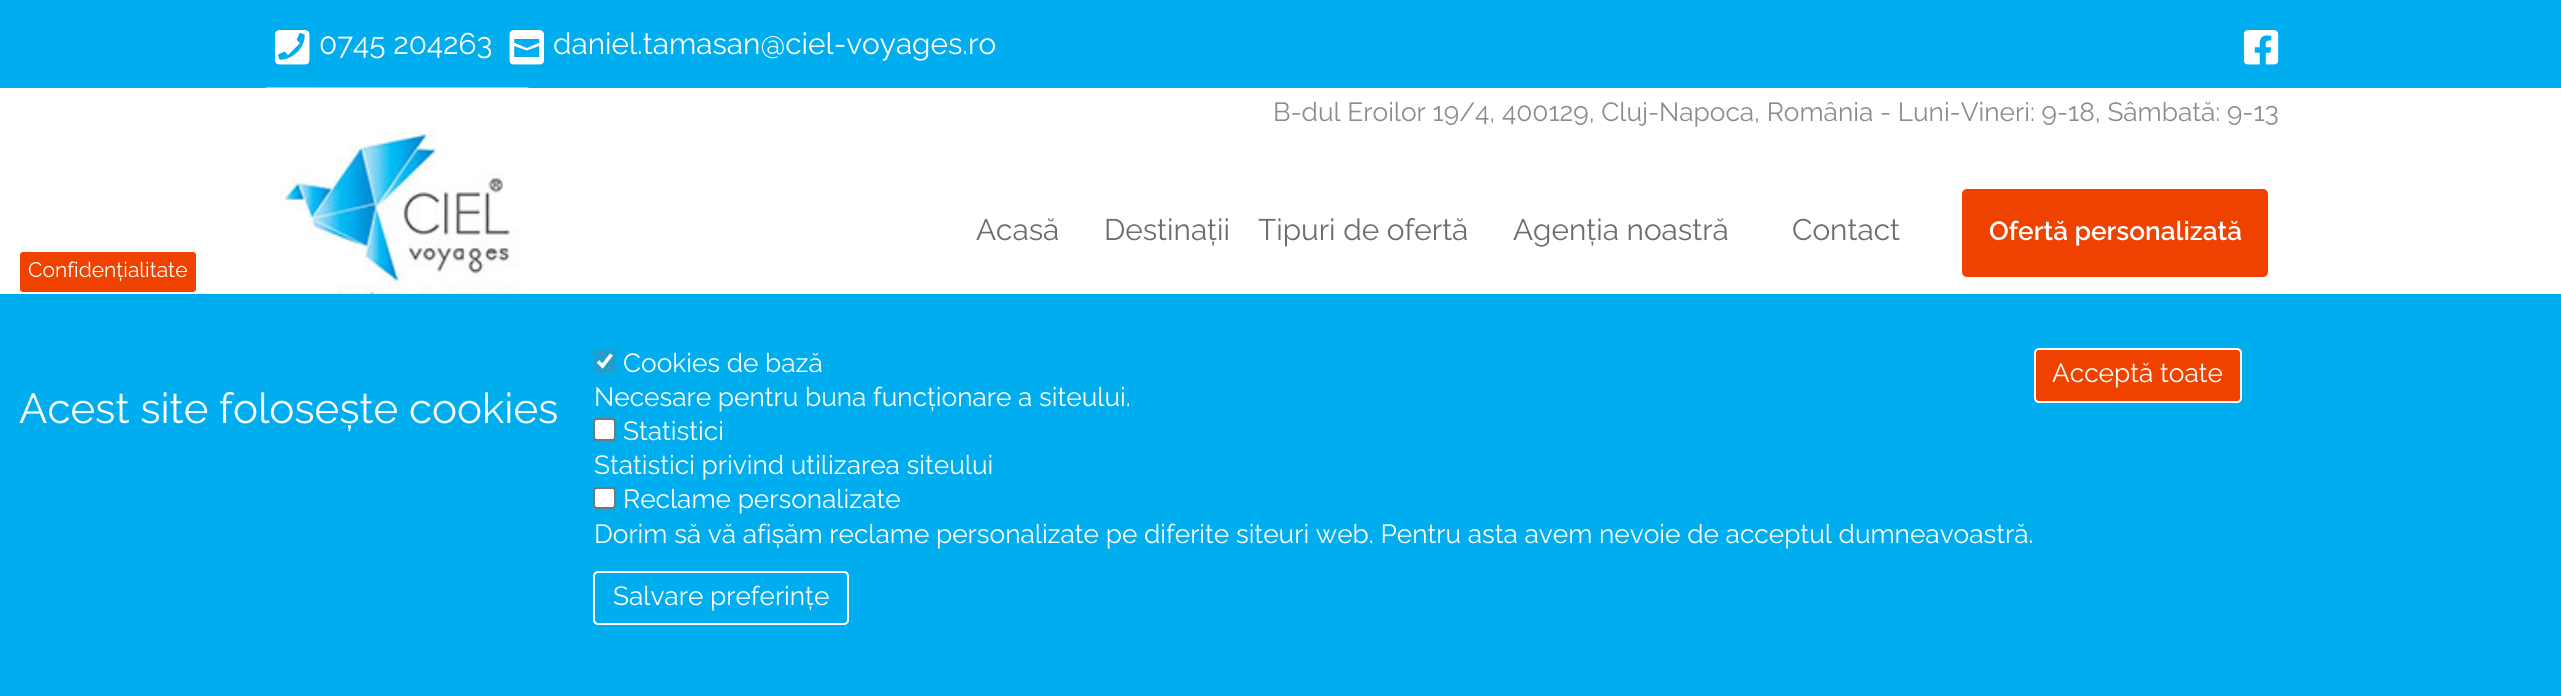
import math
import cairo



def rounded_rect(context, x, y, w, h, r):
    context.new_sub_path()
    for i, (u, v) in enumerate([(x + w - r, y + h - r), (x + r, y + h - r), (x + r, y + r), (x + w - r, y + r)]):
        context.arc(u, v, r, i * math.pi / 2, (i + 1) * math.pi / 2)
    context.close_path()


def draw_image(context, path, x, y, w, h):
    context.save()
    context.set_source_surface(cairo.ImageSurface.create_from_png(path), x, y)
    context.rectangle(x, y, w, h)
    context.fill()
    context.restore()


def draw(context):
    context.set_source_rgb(1, 1, 1)
    context.paint()
    context.set_source_rgb(0, 173 / 255, 239 / 255)
    context.rectangle(0, 0, 2561, 88)
    context.fill()
    draw_image(context, "images/1.png", 275, 30, 35, 35)
    draw_image(context, "images/2.png", 509, 30, 35, 35)
    draw_image(context, "images/3.png", 2244, 30, 35, 35)
    draw_image(context, "images/4.png", 266, 87, 263, 207)
    context.set_source_rgb(239 / 255, 66 / 255, 0)
    rounded_rect(context, 1962, 189, 306, 88, 5)
    context.fill()
    context.set_source_rgb(0, 173 / 255, 239 / 255)
    context.rectangle(0, 294, 2561, 402)
    context.fill()
    context.set_source_rgb(239 / 255, 66 / 255, 0)
    rounded_rect(context, 19, 251, 178, 42, 4)
    context.fill_preserve()
    context.set_source_rgb(1, 1, 1)
    context.stroke()
    context.set_source_rgb(35 / 255, 157 / 255, 203 / 255)
    rounded_rect(context, 593, 350, 23, 23, 4)
    context.fill()
    context.new_path()
    context.move_to(598, 361.5)
    context.line_to(602.5, 366)
    context.line_to(611.5, 354.5)
    context.set_source_rgb(1, 1, 1)
    context.set_line_width(3.6)
    context.stroke()
    rounded_rect(context, 594, 419, 21, 21, 3)
    context.fill_preserve()
    context.set_source_rgb(118 / 255, 118 / 255, 118 / 255)
    context.set_line_width(2)
    context.stroke()
    context.set_source_rgb(1, 1, 1)
    rounded_rect(context, 594, 488, 21, 20, 3)
    context.fill_preserve()
    context.set_source_rgb(118 / 255, 118 / 255, 118 / 255)
    context.stroke()
    rounded_rect(context, 594, 572, 254, 52, 4)
    context.set_source_rgb(1, 1, 1)
    context.stroke()
    context.set_source_rgb(239 / 255, 66 / 255, 0)
    rounded_rect(context, 2035, 349, 206, 53, 4)
    context.fill_preserve()
    context.set_source_rgb(1, 1, 1)
    context.stroke()
    context.select_font_face("Raleway")
    context.set_font_size(29.75)
    context.move_to(319, 54)
    context.show_text("0745 204263")
    context.move_to(553, 54)
    context.show_text("daniel.tamasan@ciel-voyages.ro")
    context.set_font_size(26.25)
    context.set_source_rgb(140 / 255, 140 / 255, 140 / 255)
    context.move_to(1273, 121)
    context.show_text("B-dul Eroilor 19/4, 400129, Cluj-Napoca, România - Luni-Vineri: 9-18, Sâmbată: 9-13")
    context.set_font_size(29.75)
    context.set_source_rgb(109 / 255, 109 / 255, 109 / 255)
    context.move_to(976, 240)
    context.show_text("Acasă")
    context.move_to(1104, 240)
    context.show_text("Destinații")
    context.move_to(1258, 240)
    context.show_text("Tipuri de ofertă")
    context.move_to(1513, 240)
    context.show_text("Agenția noastră")
    context.move_to(1792, 240)
    context.show_text("Contact")
    context.select_font_face("Raleway SemiBold")
    context.set_font_size(26.25)
    context.set_source_rgb(1, 1, 1)
    context.move_to(1989, 240)
    context.show_text("Ofertă personalizată")
    context.select_font_face("Raleway")
    context.set_font_size(21)
    context.move_to(28, 277)
    context.show_text("Confidențialitate")
    context.set_font_size(26.25)
    context.move_to(623, 372)
    context.show_text("Cookies de bază")
    context.move_to(594, 406)
    context.show_text("Necesare pentru buna funcționare a siteului.")
    context.move_to(623, 440)
    context.show_text("Statistici")
    context.move_to(594, 474)
    context.show_text("Statistici privind utilizarea siteului")
    context.move_to(623, 508)
    context.show_text("Reclame personalizate")
    context.move_to(594, 543)
    context.show_text("Dorim să vă afișăm reclame personalizate pe diferite siteuri web. Pentru asta avem nevoie de acceptul dumneavoastră.")
    context.move_to(613, 605)
    context.show_text("Salvare preferințe")
    context.move_to(2052, 382)
    context.show_text("Acceptă toate")
    context.set_font_size(42)
    context.move_to(19, 423)
    context.show_text("Acest site folosește cookies")


surface = cairo.ImageSurface(cairo.Format.RGB24, 2561, 696)
context = cairo.Context(surface)
options = cairo.FontOptions()
options.set_hint_metrics(cairo.HintMetrics.OFF)
options.set_hint_style(cairo.HintStyle.NONE)
context.set_font_options(options)
context.set_miter_limit(4)
draw(context)
surface.write_to_png("out.png")
